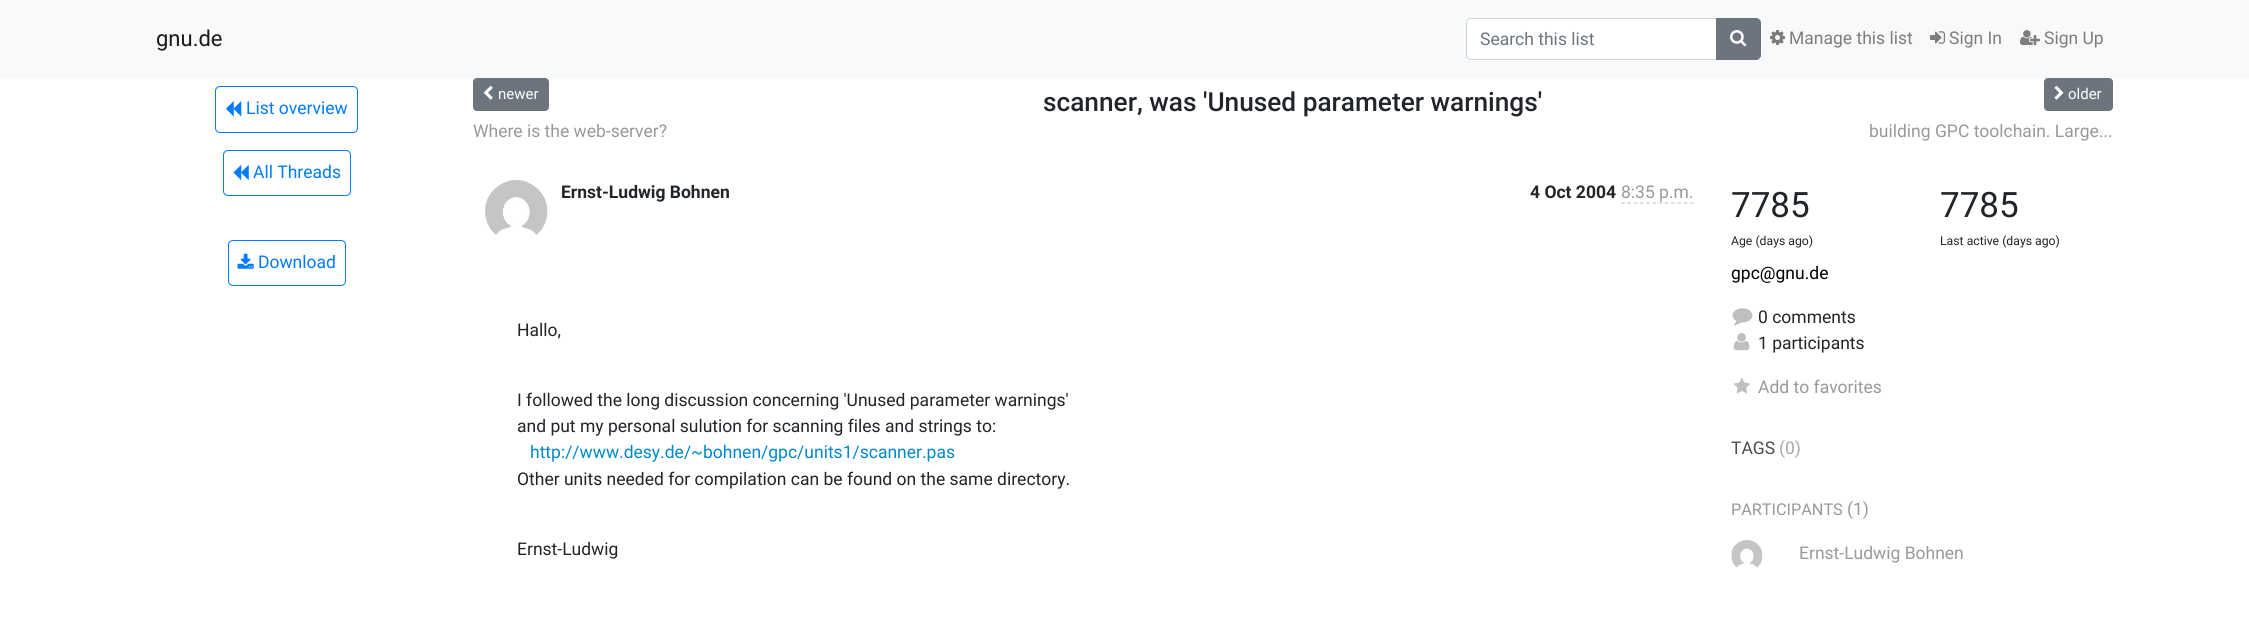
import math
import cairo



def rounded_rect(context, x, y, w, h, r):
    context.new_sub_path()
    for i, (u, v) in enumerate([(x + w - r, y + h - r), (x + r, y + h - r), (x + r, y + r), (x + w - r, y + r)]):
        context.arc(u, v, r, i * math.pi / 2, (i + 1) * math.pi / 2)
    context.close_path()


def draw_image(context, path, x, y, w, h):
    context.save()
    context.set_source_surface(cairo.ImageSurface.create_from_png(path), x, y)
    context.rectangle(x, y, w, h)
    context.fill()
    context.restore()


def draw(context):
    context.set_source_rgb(1, 1, 1)
    context.paint()
    context.set_source_rgb(248 / 255, 249 / 255, 250 / 255)
    context.rectangle(0, 0, 2249, 78)
    context.fill()
    context.set_source_rgb(1, 1, 1)
    context.new_path()
    context.move_to(1471, 19)
    context.line_to(1716, 19)
    context.line_to(1716, 59)
    context.line_to(1471, 59)
    context.curve_to(1469.5, 59, 1468, 57.5, 1468, 56)
    context.line_to(1468, 22)
    context.curve_to(1468, 20.5, 1469.5, 19, 1471, 19)
    context.close_path()
    context.fill()
    context.new_path()
    context.move_to(1471, 18.5)
    context.line_to(1717.5, 18.5)
    context.line_to(1717.5, 59.5)
    context.line_to(1471, 59.5)
    context.curve_to(1468.5, 59.5, 1466.5, 57.5, 1466.5, 55)
    context.line_to(1466.5, 23)
    context.curve_to(1466.5, 20.5, 1468.5, 18.5, 1471, 18.5)
    context.close_path()
    context.set_source_rgb(206 / 255, 212 / 255, 218 / 255)
    context.set_line_width(1)
    context.stroke()
    context.set_source_rgb(108 / 255, 117 / 255, 125 / 255)
    context.new_path()
    context.move_to(1716.5, 18.5)
    context.line_to(1756, 18.5)
    context.curve_to(1758.5, 18.5, 1760.5, 20.5, 1760.5, 23)
    context.line_to(1760.5, 55)
    context.curve_to(1760.5, 57.5, 1758.5, 59.5, 1756, 59.5)
    context.line_to(1716.5, 59.5)
    context.close_path()
    context.fill_preserve()
    context.stroke()
    draw_image(context, "images/1.png", 1730, 30, 17, 17)
    draw_image(context, "images/2.png", 1770, 30, 15, 15)
    draw_image(context, "images/3.png", 1930, 31, 15, 13)
    draw_image(context, "images/4.png", 2020, 30, 20, 15)
    rounded_rect(context, 215.5, 86.5, 142, 46, 4.5)
    context.set_source_rgb(0, 123 / 255, 1)
    context.stroke()
    draw_image(context, "images/5.png", 226, 101, 16, 16)
    rounded_rect(context, 223.5, 150.5, 127, 45, 4.5)
    context.stroke()
    draw_image(context, "images/6.png", 233, 165, 16, 15)
    rounded_rect(context, 228.5, 240.5, 117, 45, 4.5)
    context.stroke()
    draw_image(context, "images/7.png", 237, 253, 17, 16)
    context.set_source_rgb(108 / 255, 117 / 255, 125 / 255)
    rounded_rect(context, 473.5, 78.5, 75, 32, 3.5)
    context.fill_preserve()
    context.stroke()
    draw_image(context, "images/8.png", 483, 85, 10, 15)
    rounded_rect(context, 2044.5, 78.5, 68, 32, 3.5)
    context.fill_preserve()
    context.stroke()
    draw_image(context, "images/9.png", 2054, 85, 10, 15)
    draw_image(context, "images/10.png", 485, 180, 63, 55)
    context.new_path()
    context.move_to(1621, 203)
    context.line_to(1694, 203)
    context.set_source_rgb(204 / 255, 204 / 255, 204 / 255)
    context.set_line_width(1.2)
    context.set_dash([3.75, 2.5])
    context.stroke()
    draw_image(context, "images/11.png", 1732, 308, 21, 18)
    draw_image(context, "images/12.png", 1733, 333, 17, 18)
    draw_image(context, "images/13.png", 1733, 377, 17, 17)
    draw_image(context, "images/14.png", 1731, 540, 32, 28)
    context.select_font_face("Roboto")
    context.set_font_size(22)
    context.set_source_rgb(25 / 255, 25 / 255, 25 / 255)
    context.move_to(156, 46)
    context.show_text("gnu.de")
    context.set_font_size(17.5)
    context.set_source_rgb(108 / 255, 117 / 255, 125 / 255)
    context.move_to(1480, 45)
    context.show_text("Search this list")
    context.set_source_rgb(124 / 255, 125 / 255, 125 / 255)
    context.move_to(1789, 44)
    context.show_text("Manage this list")
    context.move_to(1949, 44)
    context.show_text("Sign In")
    context.move_to(2044, 44)
    context.show_text("Sign Up")
    context.set_source_rgb(0, 123 / 255, 1)
    context.move_to(246, 114)
    context.show_text("List overview")
    context.move_to(253, 178)
    context.show_text("All Threads")
    context.move_to(258, 268)
    context.show_text("Download")
    context.set_font_size(15)
    context.set_source_rgb(1, 1, 1)
    context.move_to(498, 99)
    context.show_text("newer")
    context.select_font_face("Roboto Medium")
    context.set_font_size(26.25)
    context.set_source_rgb(33 / 255, 37 / 255, 41 / 255)
    context.move_to(1043, 111)
    context.show_text("scanner, was 'Unused parameter warnings'")
    context.select_font_face("Roboto")
    context.set_font_size(15)
    context.set_source_rgb(1, 1, 1)
    context.move_to(2068, 99)
    context.show_text("older")
    context.set_font_size(17.5)
    context.set_source_rgb(153 / 255, 153 / 255, 153 / 255)
    context.move_to(473, 137)
    context.show_text("Where is the web-server?")
    context.move_to(1869, 137)
    context.show_text("building GPC toolchain. Large...")
    context.select_font_face("Roboto", cairo.FontSlant.NORMAL, cairo.FontWeight.BOLD)
    context.set_source_rgb(33 / 255, 37 / 255, 41 / 255)
    context.move_to(561, 198)
    context.show_text("Ernst-Ludwig Bohnen")
    context.move_to(1530, 198)
    context.show_text("4 Oct 2004")
    context.select_font_face("Roboto")
    context.set_source_rgb(153 / 255, 153 / 255, 153 / 255)
    context.move_to(1621, 198)
    context.show_text("8:35 p.m.")
    context.set_source_rgb(33 / 255, 37 / 255, 41 / 255)
    context.move_to(517, 336)
    context.show_text("Hallo,")
    context.move_to(517, 406)
    context.show_text("I followed the long discussion concerning 'Unused parameter warnings'")
    context.move_to(517, 432)
    context.show_text("and put my personal sulution for scanning files and strings to:")
    context.set_source_rgb(0, 136 / 255, 204 / 255)
    context.move_to(530, 458)
    context.show_text("http://www.desy.de/~bohnen/gpc/units1/scanner.pas")
    context.set_source_rgb(33 / 255, 37 / 255, 41 / 255)
    context.move_to(517, 485)
    context.show_text("Other units needed for compilation can be found on the same directory.")
    context.move_to(517, 555)
    context.show_text("Ernst-Ludwig")
    context.set_font_size(35)
    context.move_to(1731, 217)
    context.show_text("7785")
    context.set_font_size(12.25)
    context.move_to(1731, 245)
    context.show_text("Age (days ago)")
    context.set_font_size(35)
    context.move_to(1940, 217)
    context.show_text("7785")
    context.set_font_size(12.25)
    context.move_to(1940, 245)
    context.show_text("Last active (days ago)")
    context.set_font_size(17.5)
    context.set_source_rgb(0, 0, 0)
    context.move_to(1731, 279)
    context.show_text("gpc@gnu.de")
    context.set_source_rgb(33 / 255, 37 / 255, 41 / 255)
    context.move_to(1758, 323)
    context.show_text("0 comments")
    context.move_to(1758, 349)
    context.show_text("1 participants")
    context.set_source_rgb(153 / 255, 153 / 255, 153 / 255)
    context.move_to(1758, 393)
    context.show_text("Add to favorites")
    context.set_source_rgb(77 / 255, 77 / 255, 77 / 255)
    context.move_to(1731, 454)
    context.show_text("TAGS")
    context.set_source_rgb(167 / 255, 169 / 255, 172 / 255)
    context.move_to(1779, 454)
    context.show_text("(0)")
    context.set_font_size(16.25)
    context.set_source_rgb(153 / 255, 153 / 255, 153 / 255)
    context.move_to(1731, 515)
    context.show_text("PARTICIPANTS")
    context.set_font_size(17.5)
    context.move_to(1847, 515)
    context.show_text("(1)")
    context.move_to(1799, 559)
    context.show_text("Ernst-Ludwig Bohnen")


surface = cairo.ImageSurface(cairo.Format.RGB24, 2249, 631)
context = cairo.Context(surface)
options = cairo.FontOptions()
options.set_hint_metrics(cairo.HintMetrics.OFF)
options.set_hint_style(cairo.HintStyle.NONE)
context.set_font_options(options)
context.set_miter_limit(4)
draw(context)
surface.write_to_png("out.png")
